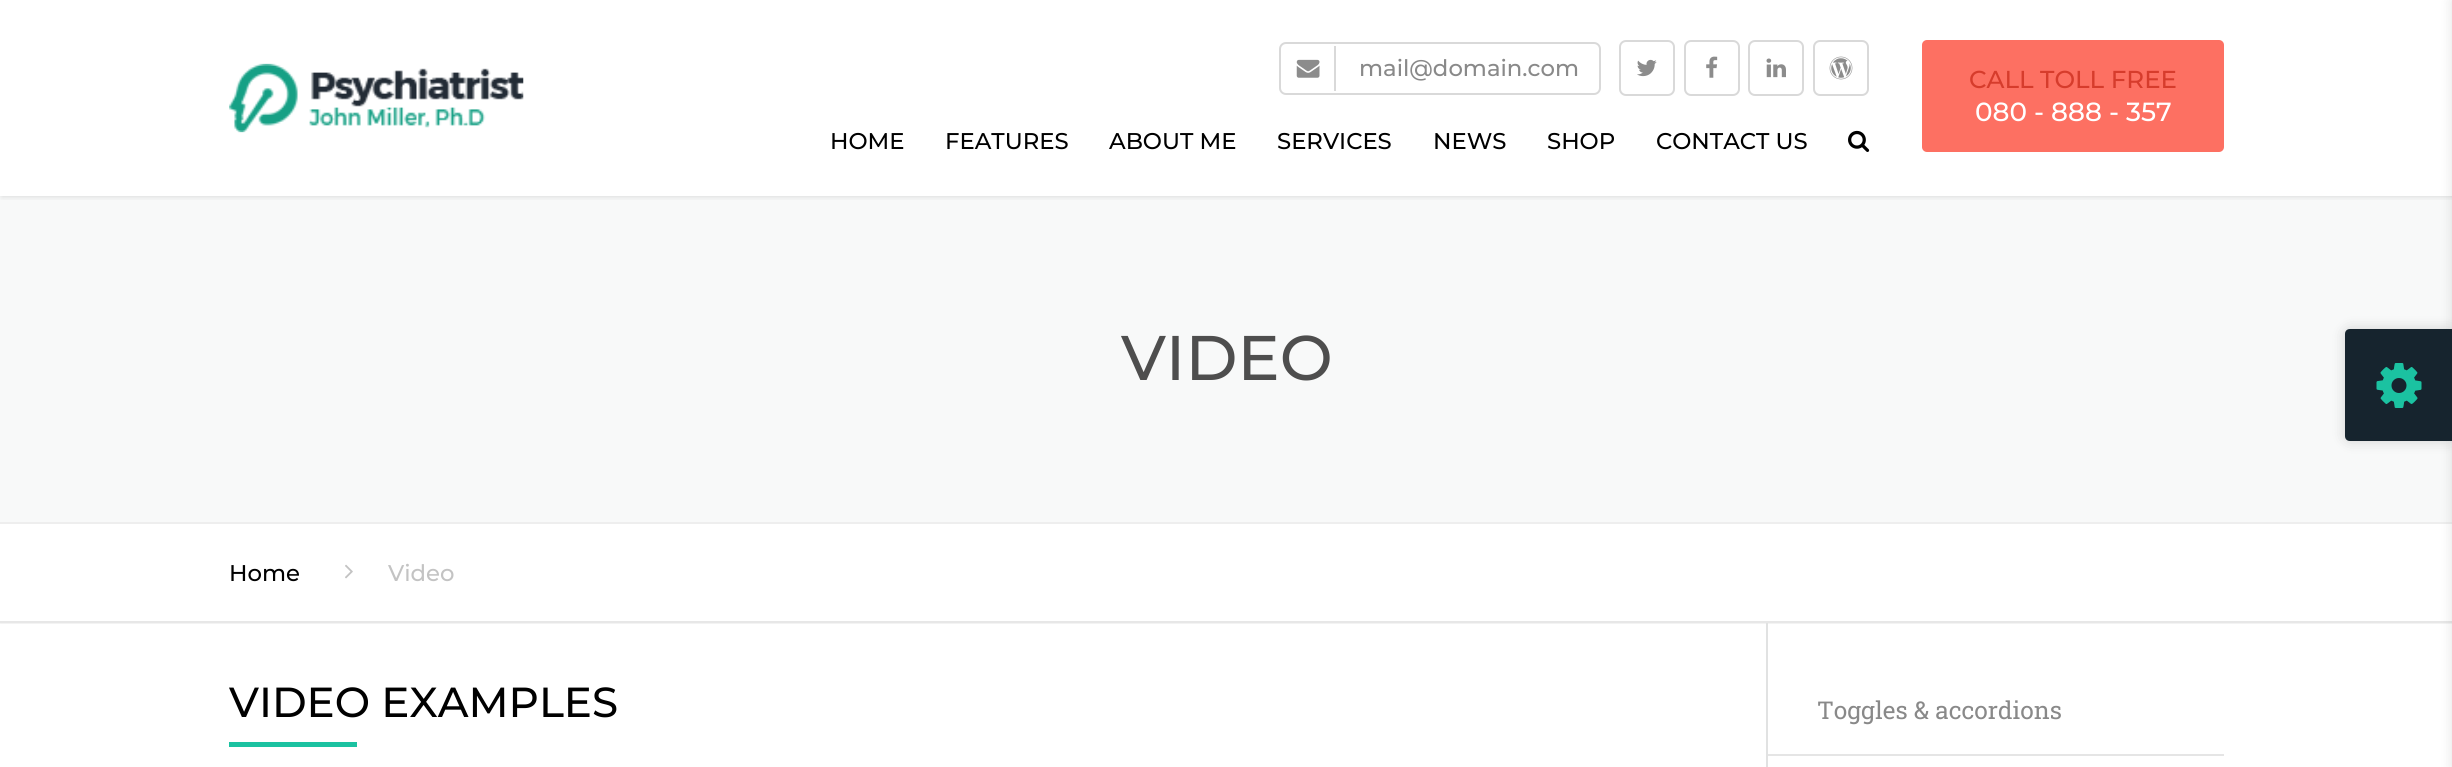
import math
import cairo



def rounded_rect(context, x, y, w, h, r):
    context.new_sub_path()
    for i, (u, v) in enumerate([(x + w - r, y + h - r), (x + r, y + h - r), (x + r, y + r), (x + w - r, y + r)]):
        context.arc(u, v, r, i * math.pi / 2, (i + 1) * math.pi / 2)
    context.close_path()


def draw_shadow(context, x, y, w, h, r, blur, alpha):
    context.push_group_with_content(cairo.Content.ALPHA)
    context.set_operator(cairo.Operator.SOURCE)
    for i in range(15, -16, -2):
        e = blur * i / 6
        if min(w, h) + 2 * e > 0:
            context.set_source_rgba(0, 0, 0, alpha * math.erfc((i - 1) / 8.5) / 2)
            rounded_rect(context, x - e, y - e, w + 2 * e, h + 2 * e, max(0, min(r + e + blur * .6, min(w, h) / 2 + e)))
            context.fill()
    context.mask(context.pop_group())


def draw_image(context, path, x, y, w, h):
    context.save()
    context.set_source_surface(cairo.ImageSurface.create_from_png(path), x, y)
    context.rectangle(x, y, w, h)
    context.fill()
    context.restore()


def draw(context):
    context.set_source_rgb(1, 1, 1)
    context.paint()
    context.save()
    context.rectangle(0, 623, 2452, 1)
    context.clip()
    context.set_source_rgb(0, 0, 0)
    draw_shadow(context, 0, 523, 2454, 100, 0, 1, 0.14)
    context.restore()
    context.set_source_rgb(248 / 255, 249 / 255, 249 / 255)
    context.rectangle(0, 196, 2452, 326)
    context.fill()
    context.save()
    context.rectangle(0, 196, 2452, 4)
    context.clip()
    context.set_source_rgb(0, 0, 0)
    draw_shadow(context, 2, 0, 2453, 196, 0, 3.5, 0.15)
    context.restore()
    draw_image(context, "images/1.png", 229, 63, 295, 70)
    rounded_rect(context, 1280, 43, 320, 51, 6)
    context.set_source_rgb(217 / 255, 217 / 255, 217 / 255)
    context.stroke()
    draw_image(context, "images/2.png", 1296, 59, 24, 19)
    context.rectangle(1334, 46, 2, 45)
    context.fill()
    rounded_rect(context, 1620, 41, 54, 54, 6)
    context.stroke()
    draw_image(context, "images/3.png", 1637, 59, 20, 18)
    rounded_rect(context, 1685, 41, 54, 54, 6)
    context.stroke()
    draw_image(context, "images/4.png", 1706, 56, 12, 22)
    rounded_rect(context, 1749, 41, 54, 54, 6)
    context.stroke()
    draw_image(context, "images/5.png", 1766, 58, 20, 20)
    rounded_rect(context, 1814, 41, 54, 54, 6)
    context.stroke()
    draw_image(context, "images/6.png", 1829, 56, 24, 24)
    draw_image(context, "images/7.png", 1848, 130, 22, 22)
    context.set_source_rgb(253 / 255, 112 / 255, 98 / 255)
    rounded_rect(context, 1922, 40, 302, 112, 5)
    context.fill()
    context.set_source_rgb(238 / 255, 238 / 255, 238 / 255)
    context.rectangle(0, 522, 2452, 2)
    context.fill()
    context.set_source_rgb(231 / 255, 231 / 255, 231 / 255)
    context.rectangle(0, 621, 2452, 2)
    context.fill()
    draw_image(context, "images/8.png", 345, 564, 8, 15)
    context.set_source_rgb(27 / 255, 194 / 255, 161 / 255)
    context.rectangle(229, 742, 128, 5)
    context.fill()
    context.set_source_rgb(229 / 255, 229 / 255, 229 / 255)
    context.rectangle(1766, 754, 458, 2)
    context.fill()
    context.set_source_rgb(225 / 255, 226 / 255, 226 / 255)
    context.rectangle(1766, 623, 2, 144)
    context.fill()
    context.set_source_rgb(0, 0, 0)
    draw_shadow(context, 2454, 0, 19, 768, 0, 7, 0.15)
    draw_shadow(context, 2345, 329, 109, 112, 5, 7, 0.15)
    context.set_source_rgb(22 / 255, 36 / 255, 46 / 255)
    context.new_path()
    context.move_to(2350, 329)
    context.line_to(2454, 329)
    context.line_to(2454, 441)
    context.line_to(2350, 441)
    context.curve_to(2347, 441, 2345, 439, 2345, 436)
    context.line_to(2345, 334)
    context.curve_to(2345, 331, 2347, 329, 2350, 329)
    context.close_path()
    context.fill()
    draw_image(context, "images/9.png", 2376, 363, 46, 45)
    context.select_font_face("Montserrat Medium")
    context.set_font_size(22.75)
    context.set_source_rgb(137 / 255, 137 / 255, 137 / 255)
    context.move_to(1359, 76)
    context.show_text("mail@domain.com")
    context.set_source_rgb(0, 0, 0)
    context.move_to(830, 149)
    context.show_text("HOME")
    context.move_to(945, 149)
    context.show_text("FEATURES")
    context.move_to(1109, 149)
    context.show_text("ABOUT ME")
    context.move_to(1277, 149)
    context.show_text("SERVICES")
    context.move_to(1433, 149)
    context.show_text("NEWS")
    context.move_to(1547, 149)
    context.show_text("SHOP")
    context.move_to(1656, 149)
    context.show_text("CONTACT US")
    context.set_font_size(24.5)
    context.set_source_rgb(214 / 255, 60 / 255, 44 / 255)
    context.move_to(1969, 88)
    context.show_text("CALL TOLL FREE")
    context.set_font_size(26.25)
    context.set_source_rgb(1, 1, 1)
    context.move_to(1975, 121)
    context.show_text("080 - 888 - 357")
    context.set_font_size(63)
    context.set_source_rgb(78 / 255, 78 / 255, 78 / 255)
    context.move_to(1121, 380)
    context.show_text("VIDEO")
    context.set_font_size(22.75)
    context.set_source_rgb(0, 0, 0)
    context.move_to(229, 581)
    context.show_text("Home")
    context.set_source_rgb(195 / 255, 195 / 255, 195 / 255)
    context.move_to(388, 581)
    context.show_text("Video")
    context.set_font_size(42)
    context.set_source_rgb(0, 0, 0)
    context.move_to(229, 717)
    context.show_text("VIDEO EXAMPLES")
    context.select_font_face("Roboto Slab")
    context.set_font_size(24.5)
    context.set_source_rgb(137 / 255, 137 / 255, 137 / 255)
    context.move_to(1817, 719)
    context.show_text("Toggles & accordions")


surface = cairo.ImageSurface(cairo.Format.RGB24, 2452, 767)
context = cairo.Context(surface)
options = cairo.FontOptions()
options.set_hint_metrics(cairo.HintMetrics.OFF)
options.set_hint_style(cairo.HintStyle.NONE)
context.set_font_options(options)
context.set_miter_limit(4)
draw(context)
surface.write_to_png("out.png")
